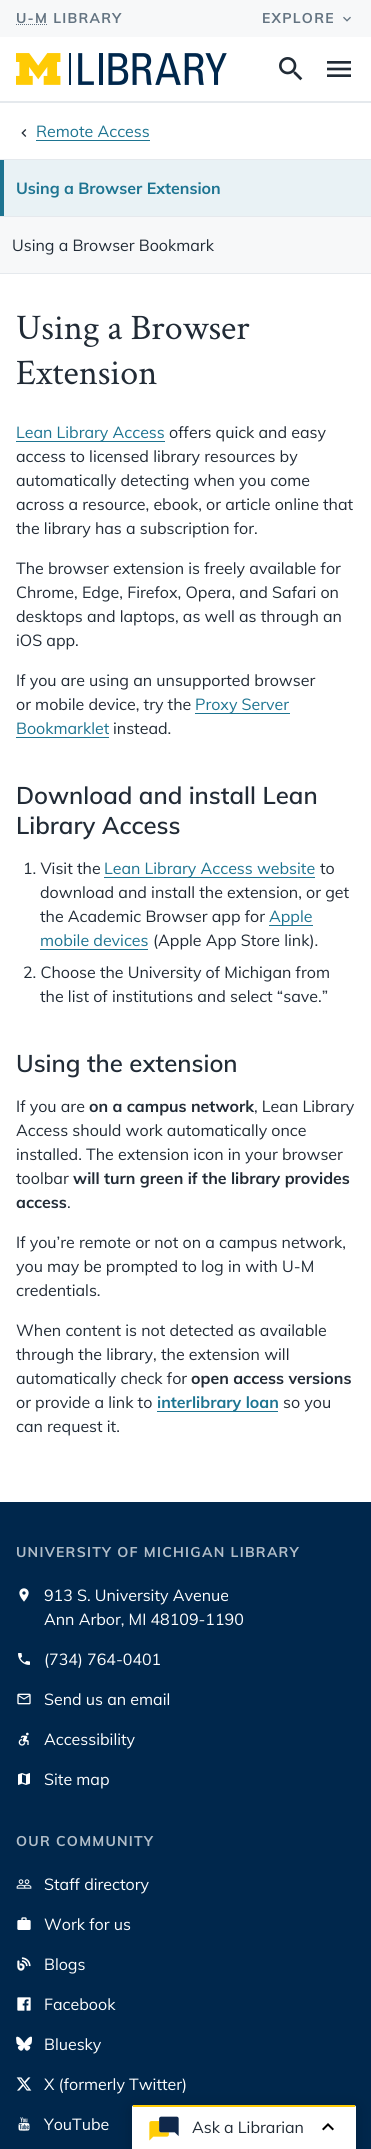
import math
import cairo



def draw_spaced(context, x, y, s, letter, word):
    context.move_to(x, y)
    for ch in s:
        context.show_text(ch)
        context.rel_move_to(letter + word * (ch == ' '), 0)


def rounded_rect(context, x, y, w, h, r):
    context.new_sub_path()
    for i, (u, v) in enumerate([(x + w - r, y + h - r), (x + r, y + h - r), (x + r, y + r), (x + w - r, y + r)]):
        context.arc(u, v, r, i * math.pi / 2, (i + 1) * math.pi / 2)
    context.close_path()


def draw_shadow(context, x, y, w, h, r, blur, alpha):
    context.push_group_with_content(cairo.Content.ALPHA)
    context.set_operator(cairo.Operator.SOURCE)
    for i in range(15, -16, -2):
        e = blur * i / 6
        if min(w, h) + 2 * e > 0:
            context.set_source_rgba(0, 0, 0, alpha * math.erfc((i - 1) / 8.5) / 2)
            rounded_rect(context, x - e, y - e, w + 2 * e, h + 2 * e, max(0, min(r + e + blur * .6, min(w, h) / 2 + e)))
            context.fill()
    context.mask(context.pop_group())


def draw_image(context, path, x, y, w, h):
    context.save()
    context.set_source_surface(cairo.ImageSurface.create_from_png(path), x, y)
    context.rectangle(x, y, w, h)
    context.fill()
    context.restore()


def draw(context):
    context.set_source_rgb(1, 1, 1)
    context.paint()
    context.set_source_rgb(247 / 255, 248 / 255, 249 / 255)
    context.rectangle(0, 0, 371, 37)
    context.fill()
    context.new_path()
    context.move_to(16, 24.5)
    context.line_to(48, 24.5)
    context.set_source_rgb(99 / 255, 115 / 255, 129 / 255)
    context.set_line_width(1)
    context.set_dash([1, 1])
    context.stroke()
    draw_image(context, "images/1.png", 343, 16, 8, 6)
    context.set_source_rgb(229 / 255, 233 / 255, 237 / 255)
    context.rectangle(0, 101, 371, 2)
    context.fill()
    draw_image(context, "images/2.png", 16, 53, 211, 32)
    draw_image(context, "images/3.png", 279, 57, 24, 24)
    draw_image(context, "images/4.png", 327, 61, 24, 16)
    draw_image(context, "images/5.png", 21, 129, 6, 8)
    context.set_source_rgb(29 / 255, 116 / 255, 145 / 255)
    context.rectangle(36, 140, 114, 1)
    context.fill()
    context.set_source_rgb(247 / 255, 248 / 255, 249 / 255)
    context.rectangle(0, 217, 371, 56)
    context.fill()
    context.set_source_rgb(229 / 255, 233 / 255, 237 / 255)
    context.rectangle(0, 273, 371, 1)
    context.fill()
    context.rectangle(0, 159, 371, 1)
    context.fill()
    context.set_source_rgb(233 / 255, 242 / 255, 245 / 255)
    context.rectangle(4, 160, 367, 56)
    context.fill()
    context.set_source_rgb(29 / 255, 116 / 255, 145 / 255)
    context.rectangle(0, 160, 4, 56)
    context.fill()
    context.set_source_rgb(229 / 255, 233 / 255, 237 / 255)
    context.rectangle(0, 216, 371, 1)
    context.fill()
    context.set_source_rgb(29 / 255, 116 / 255, 145 / 255)
    context.rectangle(16, 441, 149, 1)
    context.fill()
    context.rectangle(195, 713, 95, 1)
    context.fill()
    context.rectangle(16, 737, 93, 1)
    context.fill()
    context.rectangle(104, 877, 211, 1)
    context.fill()
    context.rectangle(269, 925, 44, 1)
    context.fill()
    context.rectangle(40, 949, 108, 1)
    context.fill()
    context.rectangle(157, 1411, 121, 1)
    context.fill()
    context.set_source_rgb(0, 39 / 255, 76 / 255)
    context.rectangle(0, 1502, 371, 647)
    context.fill()
    draw_image(context, "images/6.png", 19, 1588, 10, 14)
    draw_image(context, "images/7.png", 18, 1653, 12, 12)
    draw_image(context, "images/8.png", 17, 1693, 14, 12)
    draw_image(context, "images/9.png", 18, 1732, 11, 14)
    draw_image(context, "images/10.png", 18, 1773, 12, 12)
    draw_image(context, "images/11.png", 16, 1879, 16, 10)
    draw_image(context, "images/12.png", 17, 1917, 14, 13)
    draw_image(context, "images/13.png", 17, 1957, 14, 14)
    draw_image(context, "images/14.png", 17, 1997, 14, 14)
    draw_image(context, "images/15.png", 16, 2036, 16, 15)
    draw_image(context, "images/16.png", 16, 2077, 16, 14)
    draw_image(context, "images/17.png", 18, 2117, 12, 14)
    context.set_source_rgb(0, 0, 0)
    draw_shadow(context, 132, 2107, 224, 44, 2, 8, 0.2)
    context.set_source_rgb(1, 1, 1)
    context.new_path()
    context.move_to(134, 2105)
    context.line_to(354, 2105)
    context.curve_to(355, 2105, 356, 2106, 356, 2107)
    context.line_to(356, 2149)
    context.line_to(132, 2149)
    context.line_to(132, 2107)
    context.curve_to(132, 2106, 133, 2105, 134, 2105)
    context.close_path()
    context.fill()
    context.set_source_rgb(1, 203 / 255, 5 / 255)
    context.rectangle(133, 2105, 222, 2)
    context.fill()
    draw_image(context, "images/18.png", 149, 2116, 30, 25)
    draw_image(context, "images/19.png", 322, 2123, 12, 8)
    context.select_font_face("Muli", cairo.FontSlant.NORMAL, cairo.FontWeight.BOLD)
    context.set_font_size(14)
    context.set_source_rgb(99 / 255, 115 / 255, 129 / 255)
    draw_spaced(context, 16, 23, "U-M LIBRARY", 1.25, 0)
    draw_spaced(context, 262, 23, "EXPLORE", 1.25, 0)
    context.select_font_face("Muli")
    context.set_font_size(16)
    context.set_source_rgb(29 / 255, 116 / 255, 145 / 255)
    context.move_to(36, 137)
    context.show_text("Remote Access")
    context.select_font_face("Muli", cairo.FontSlant.NORMAL, cairo.FontWeight.BOLD)
    context.move_to(16, 194)
    context.show_text("Using a Browser Extension")
    context.select_font_face("Muli")
    context.set_source_rgb(33 / 255, 43 / 255, 54 / 255)
    context.move_to(12, 251)
    context.show_text("Using a Browser Bookmark")
    context.select_font_face("Crimson Text")
    context.set_font_size(36)
    context.move_to(16, 339)
    context.show_text("Using a Browser")
    context.move_to(16, 384)
    context.show_text("Extension")
    context.select_font_face("Muli")
    context.set_font_size(16)
    context.set_source_rgb(29 / 255, 116 / 255, 145 / 255)
    context.move_to(16, 438)
    context.show_text("Lean Library Access")
    context.set_source_rgb(33 / 255, 43 / 255, 54 / 255)
    context.move_to(169, 438)
    context.show_text("offers quick and easy")
    context.move_to(16, 462)
    context.show_text("access to licensed library resources by")
    context.move_to(16, 486)
    context.show_text("automatically detecting when you come")
    context.move_to(16, 510)
    context.show_text("across a resource, ebook, or article online that")
    context.move_to(16, 534)
    context.show_text("the library has a subscription for.")
    context.move_to(16, 574)
    context.show_text("The browser extension is freely available for")
    context.move_to(16, 598)
    context.show_text("Chrome, Edge, Firefox, Opera, and Safari on")
    context.move_to(16, 622)
    context.show_text("desktops and laptops, as well as through an")
    context.move_to(16, 646)
    context.show_text("iOS app.")
    context.move_to(16, 686)
    context.show_text("If you are using an unsupported browser")
    context.move_to(16, 710)
    context.show_text("or mobile device, try the")
    context.set_source_rgb(29 / 255, 116 / 255, 145 / 255)
    context.move_to(195, 710)
    context.show_text("Proxy Server")
    context.move_to(16, 734)
    context.show_text("Bookmarklet")
    context.set_source_rgb(33 / 255, 43 / 255, 54 / 255)
    context.move_to(113, 734)
    context.show_text("instead.")
    context.select_font_face("Muli SemiBold")
    context.set_font_size(24)
    context.move_to(16, 804)
    context.show_text("Download and install Lean")
    context.move_to(16, 834)
    context.show_text("Library Access")
    context.select_font_face("Muli")
    context.set_font_size(16)
    context.move_to(23, 874)
    context.show_text("1. Visit the")
    context.set_source_rgb(29 / 255, 116 / 255, 145 / 255)
    context.move_to(104, 874)
    context.show_text("Lean Library Access website")
    context.set_source_rgb(33 / 255, 43 / 255, 54 / 255)
    context.move_to(320, 874)
    context.show_text("to")
    context.move_to(40, 898)
    context.show_text("download and install the extension, or get")
    context.move_to(40, 922)
    context.show_text("the Academic Browser app for")
    context.set_source_rgb(29 / 255, 116 / 255, 145 / 255)
    context.move_to(269, 922)
    context.show_text("Apple")
    context.move_to(40, 946)
    context.show_text("mobile devices")
    context.set_source_rgb(33 / 255, 43 / 255, 54 / 255)
    context.move_to(153, 946)
    context.show_text("(Apple App Store link).")
    context.move_to(23, 978)
    context.show_text("2. Choose the University of Michigan from")
    context.move_to(40, 1002)
    context.show_text("the list of institutions and select “save.”")
    context.select_font_face("Muli SemiBold")
    context.set_font_size(24)
    context.move_to(16, 1072)
    context.show_text("Using the extension")
    context.select_font_face("Muli")
    context.set_font_size(16)
    context.move_to(16, 1112)
    context.show_text("If you are")
    context.select_font_face("Muli", cairo.FontSlant.NORMAL, cairo.FontWeight.BOLD)
    context.move_to(89, 1112)
    context.show_text("on a campus network")
    context.select_font_face("Muli")
    context.move_to(254, 1112)
    context.show_text(", Lean Library")
    context.move_to(16, 1136)
    context.show_text("Access should work automatically once")
    context.move_to(16, 1160)
    context.show_text("installed. The extension icon in your browser")
    context.move_to(16, 1184)
    context.show_text("toolbar")
    context.select_font_face("Muli", cairo.FontSlant.NORMAL, cairo.FontWeight.BOLD)
    context.move_to(73, 1184)
    context.show_text("will turn green if the library provides")
    context.move_to(16, 1208)
    context.show_text("access")
    context.select_font_face("Muli")
    context.move_to(67, 1208)
    context.show_text(".")
    context.move_to(16, 1248)
    context.show_text("If you’re remote or not on a campus network,")
    context.move_to(16, 1272)
    context.show_text("you may be prompted to log in with U-M")
    context.move_to(16, 1296)
    context.show_text("credentials.")
    context.move_to(16, 1336)
    context.show_text("When content is not detected as available")
    context.move_to(16, 1360)
    context.show_text("through the library, the extension will")
    context.move_to(16, 1384)
    context.show_text("automatically check for")
    context.select_font_face("Muli", cairo.FontSlant.NORMAL, cairo.FontWeight.BOLD)
    context.move_to(191, 1384)
    context.show_text("open access versions")
    context.select_font_face("Muli")
    context.move_to(16, 1408)
    context.show_text("or provide a link to")
    context.select_font_face("Muli", cairo.FontSlant.NORMAL, cairo.FontWeight.BOLD)
    context.set_source_rgb(29 / 255, 116 / 255, 145 / 255)
    context.move_to(157, 1408)
    context.show_text("interlibrary loan")
    context.select_font_face("Muli")
    context.set_source_rgb(33 / 255, 43 / 255, 54 / 255)
    context.move_to(283, 1408)
    context.show_text("so you")
    context.move_to(16, 1432)
    context.show_text("can request it.")
    context.select_font_face("Muli", cairo.FontSlant.NORMAL, cairo.FontWeight.BOLD)
    context.set_font_size(14)
    context.set_source_rgb(178 / 255, 190 / 255, 201 / 255)
    draw_spaced(context, 16, 1557, "UNIVERSITY OF MICHIGAN LIBRARY", 1.25, 0)
    context.select_font_face("Muli")
    context.set_font_size(16)
    context.set_source_rgb(1, 1, 1)
    context.move_to(44, 1601)
    context.show_text("913 S. University Avenue")
    context.move_to(44, 1625)
    context.show_text("Ann Arbor, MI 48109-1190")
    context.move_to(44, 1665)
    context.show_text("(734) 764-0401")
    context.move_to(44, 1705)
    context.show_text("Send us an email")
    context.move_to(44, 1745)
    context.show_text("Accessibility")
    context.move_to(44, 1785)
    context.show_text("Site map")
    context.select_font_face("Muli", cairo.FontSlant.NORMAL, cairo.FontWeight.BOLD)
    context.set_font_size(14)
    context.set_source_rgb(178 / 255, 190 / 255, 201 / 255)
    draw_spaced(context, 16, 1846, "OUR COMMUNITY", 1.25, 0)
    context.select_font_face("Muli")
    context.set_font_size(16)
    context.set_source_rgb(1, 1, 1)
    context.move_to(44, 1890)
    context.show_text("Staff directory")
    context.move_to(44, 1930)
    context.show_text("Work for us")
    context.move_to(44, 1970)
    context.show_text("Blogs")
    context.move_to(44, 2010)
    context.show_text("Facebook")
    context.move_to(44, 2050)
    context.show_text("Bluesky")
    context.move_to(44, 2090)
    context.show_text("X (formerly Twitter)")
    context.move_to(44, 2130)
    context.show_text("YouTube")
    context.set_source_rgb(33 / 255, 43 / 255, 54 / 255)
    context.move_to(192, 2133)
    context.show_text("Ask a Librarian")


surface = cairo.ImageSurface(cairo.Format.RGB24, 371, 2149)
context = cairo.Context(surface)
options = cairo.FontOptions()
options.set_hint_metrics(cairo.HintMetrics.OFF)
options.set_hint_style(cairo.HintStyle.NONE)
context.set_font_options(options)
context.set_miter_limit(4)
draw(context)
surface.write_to_png("out.png")
